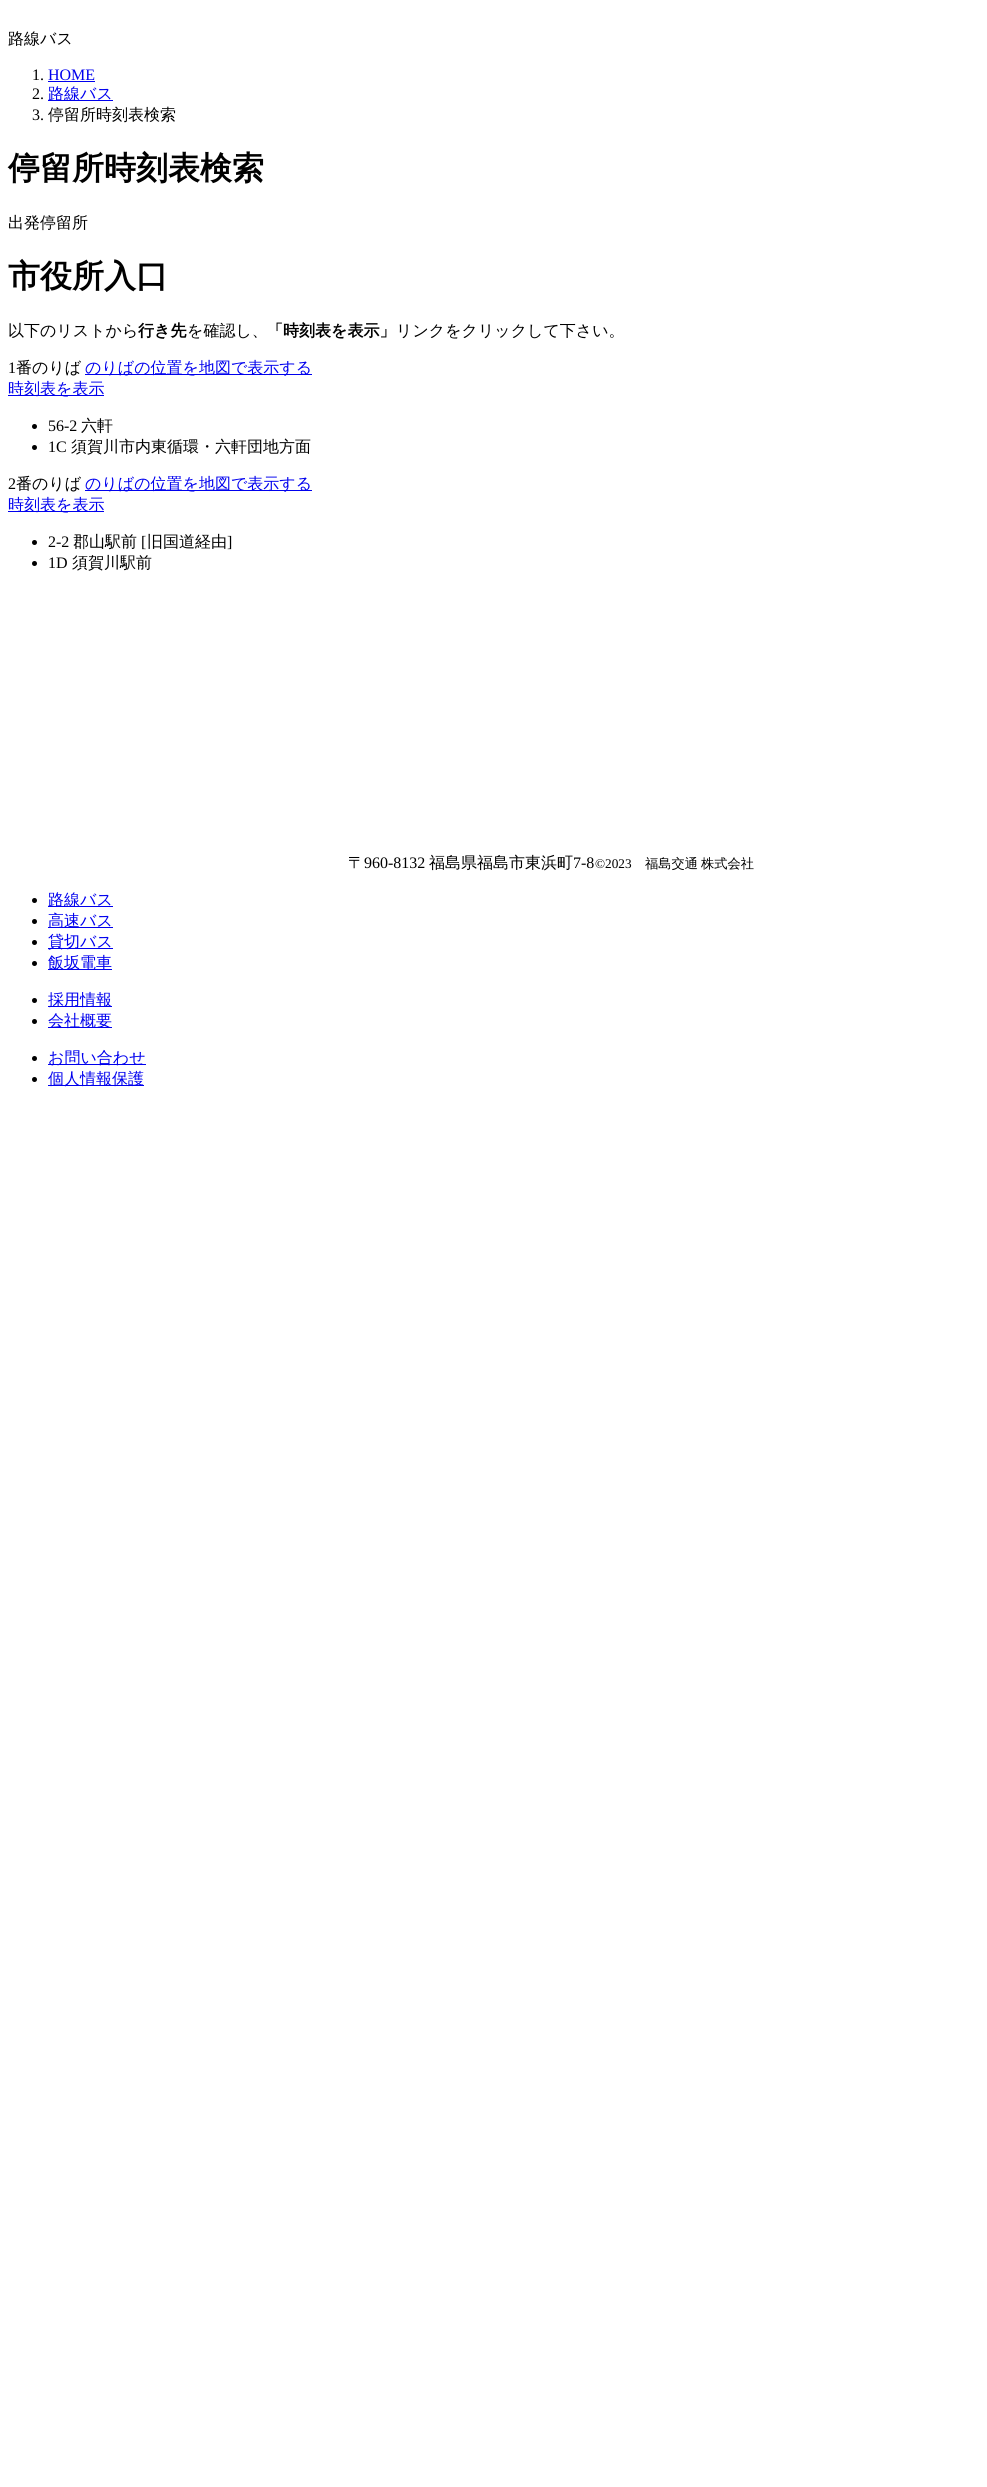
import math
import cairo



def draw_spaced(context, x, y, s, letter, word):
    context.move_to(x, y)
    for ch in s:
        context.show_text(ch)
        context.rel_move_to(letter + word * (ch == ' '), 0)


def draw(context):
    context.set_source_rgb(1, 1, 1)
    context.paint()
    context.set_source_rgb(0, 0, 238 / 255)
    context.rectangle(48, 81, 47, 1)
    context.fill()
    context.rectangle(48, 100, 65, 1)
    context.fill()
    context.rectangle(85, 374, 227, 1)
    context.fill()
    context.rectangle(8, 395, 96, 1)
    context.fill()
    context.set_source_rgb(0, 0, 0)
    context.arc(34.5, 426.5, 2.5, 0, 2 * math.pi)
    context.fill()
    context.arc(34.5, 447.5, 2.5, 0, 2 * math.pi)
    context.fill()
    context.set_source_rgb(0, 0, 238 / 255)
    context.rectangle(85, 490, 227, 1)
    context.fill()
    context.rectangle(8, 511, 96, 1)
    context.fill()
    context.set_source_rgb(0, 0, 0)
    context.arc(34.5, 542.5, 2.5, 0, 2 * math.pi)
    context.fill()
    context.arc(34.5, 563.5, 2.5, 0, 2 * math.pi)
    context.fill()
    context.arc(34.5, 900.5, 2.5, 0, 2 * math.pi)
    context.fill()
    context.set_source_rgb(0, 0, 238 / 255)
    context.rectangle(48, 906, 65, 1)
    context.fill()
    context.set_source_rgb(0, 0, 0)
    context.arc(34.5, 921.5, 2.5, 0, 2 * math.pi)
    context.fill()
    context.set_source_rgb(0, 0, 238 / 255)
    context.rectangle(48, 927, 65, 1)
    context.fill()
    context.set_source_rgb(0, 0, 0)
    context.arc(34.5, 942.5, 2.5, 0, 2 * math.pi)
    context.fill()
    context.set_source_rgb(0, 0, 238 / 255)
    context.rectangle(48, 948, 65, 1)
    context.fill()
    context.set_source_rgb(0, 0, 0)
    context.arc(34.5, 963.5, 2.5, 0, 2 * math.pi)
    context.fill()
    context.set_source_rgb(0, 0, 238 / 255)
    context.rectangle(48, 969, 64, 1)
    context.fill()
    context.set_source_rgb(0, 0, 0)
    context.arc(34.5, 1000.5, 2.5, 0, 2 * math.pi)
    context.fill()
    context.set_source_rgb(0, 0, 238 / 255)
    context.rectangle(48, 1006, 64, 1)
    context.fill()
    context.set_source_rgb(0, 0, 0)
    context.arc(34.5, 1021.5, 2.5, 0, 2 * math.pi)
    context.fill()
    context.set_source_rgb(0, 0, 238 / 255)
    context.rectangle(48, 1027, 64, 1)
    context.fill()
    context.set_source_rgb(0, 0, 0)
    context.arc(34.5, 1058.5, 2.5, 0, 2 * math.pi)
    context.fill()
    context.set_source_rgb(0, 0, 238 / 255)
    context.rectangle(48, 1064, 98, 1)
    context.fill()
    context.set_source_rgb(0, 0, 0)
    context.arc(34.5, 1079.5, 2.5, 0, 2 * math.pi)
    context.fill()
    context.set_source_rgb(0, 0, 238 / 255)
    context.rectangle(48, 1085, 96, 1)
    context.fill()
    context.select_font_face("WenQuanYi Zen Hei Medium")
    context.set_font_size(16)
    context.set_source_rgb(0, 0, 0)
    context.move_to(8, 44)
    context.show_text("路線バス")
    context.select_font_face("Liberation Serif")
    context.move_to(32, 80)
    context.show_text("1.")
    context.set_source_rgb(0, 0, 238 / 255)
    context.move_to(48, 80)
    context.show_text("HOME")
    context.set_source_rgb(0, 0, 0)
    context.move_to(32, 99)
    context.show_text("2.")
    context.select_font_face("WenQuanYi Zen Hei Medium")
    context.set_source_rgb(0, 0, 238 / 255)
    context.move_to(48, 99)
    context.show_text("路線バス")
    context.select_font_face("Liberation Serif")
    context.set_source_rgb(0, 0, 0)
    context.move_to(32, 120)
    context.show_text("3.")
    context.select_font_face("WenQuanYi Zen Hei Medium")
    context.move_to(48, 120)
    context.show_text("停留所時刻表検索")
    context.select_font_face("WenQuanYi Zen Hei", cairo.FontSlant.NORMAL, cairo.FontWeight.BOLD)
    context.set_font_size(32)
    context.move_to(8, 179)
    context.show_text("停留所時刻表検索")
    context.select_font_face("WenQuanYi Zen Hei Medium")
    context.set_font_size(16)
    context.move_to(8, 228)
    context.show_text("出発停留所")
    context.select_font_face("WenQuanYi Zen Hei", cairo.FontSlant.NORMAL, cairo.FontWeight.BOLD)
    context.set_font_size(32)
    context.move_to(8, 287)
    context.show_text("市役所入口")
    context.select_font_face("WenQuanYi Zen Hei Medium")
    context.set_font_size(16)
    context.move_to(8, 336)
    context.show_text("以下のリストから")
    context.select_font_face("WenQuanYi Zen Hei", cairo.FontSlant.NORMAL, cairo.FontWeight.BOLD)
    context.move_to(138, 336)
    context.show_text("行き先")
    context.select_font_face("WenQuanYi Zen Hei Medium")
    context.move_to(187, 336)
    context.show_text("を確認し、")
    context.select_font_face("WenQuanYi Zen Hei", cairo.FontSlant.NORMAL, cairo.FontWeight.BOLD)
    context.move_to(267, 336)
    context.show_text("「時刻表を表示」")
    context.select_font_face("WenQuanYi Zen Hei Medium")
    context.move_to(396, 336)
    context.show_text("リンクをクリックして下さい。")
    context.select_font_face("Liberation Serif")
    context.move_to(8, 373)
    context.show_text("1")
    context.select_font_face("WenQuanYi Zen Hei Medium")
    context.move_to(16, 373)
    context.show_text("番のりば")
    context.set_source_rgb(0, 0, 238 / 255)
    context.move_to(85, 373)
    context.show_text("のりばの位置を地図で表示する")
    context.move_to(8, 394)
    context.show_text("時刻表を表示")
    context.select_font_face("Liberation Serif")
    context.set_source_rgb(0, 0, 0)
    context.move_to(48, 431)
    context.show_text("56-2")
    context.select_font_face("WenQuanYi Zen Hei Medium")
    context.move_to(81, 431)
    context.show_text("六軒")
    context.select_font_face("Liberation Serif")
    context.move_to(48, 452)
    context.show_text("1C")
    context.select_font_face("WenQuanYi Zen Hei Medium")
    context.move_to(71, 452)
    context.show_text("須賀川市内東循環・六軒団地方面")
    context.select_font_face("Liberation Serif")
    context.move_to(8, 489)
    context.show_text("2")
    context.select_font_face("WenQuanYi Zen Hei Medium")
    context.move_to(16, 489)
    context.show_text("番のりば")
    context.set_source_rgb(0, 0, 238 / 255)
    context.move_to(85, 489)
    context.show_text("のりばの位置を地図で表示する")
    context.move_to(8, 510)
    context.show_text("時刻表を表示")
    context.select_font_face("Liberation Serif")
    context.set_source_rgb(0, 0, 0)
    context.move_to(48, 547)
    context.show_text("2-2")
    context.select_font_face("WenQuanYi Zen Hei Medium")
    context.move_to(73, 547)
    context.show_text("郡山駅前")
    context.select_font_face("Liberation Serif")
    context.move_to(141, 547)
    context.show_text("[")
    context.select_font_face("WenQuanYi Zen Hei Medium")
    context.move_to(147, 547)
    context.show_text("旧国道経由")
    context.select_font_face("Liberation Serif")
    context.move_to(227, 547)
    context.show_text("]")
    context.move_to(48, 568)
    context.show_text("1D")
    context.select_font_face("WenQuanYi Zen Hei Medium")
    context.move_to(72, 568)
    context.show_text("須賀川駅前")
    context.move_to(348, 868)
    context.show_text("〒")
    context.select_font_face("Liberation Serif")
    context.move_to(364, 868)
    context.show_text("960-8132")
    context.select_font_face("WenQuanYi Zen Hei Medium")
    context.move_to(429, 868)
    context.show_text("福島県福島市東浜町")
    context.select_font_face("Liberation Serif")
    context.move_to(573, 868)
    context.show_text("7-8")
    context.set_font_size(13.25)
    context.move_to(595, 868)
    context.show_text("©2023")
    context.select_font_face("WenQuanYi Zen Hei Medium")
    draw_spaced(context, 645, 868, "福島交通 株式会社", 0, -1)
    context.set_font_size(16)
    context.set_source_rgb(0, 0, 238 / 255)
    context.move_to(48, 905)
    context.show_text("路線バス")
    context.move_to(48, 926)
    context.show_text("高速バス")
    context.move_to(48, 947)
    context.show_text("貸切バス")
    context.move_to(48, 968)
    context.show_text("飯坂電車")
    context.move_to(48, 1005)
    context.show_text("採用情報")
    context.move_to(48, 1026)
    context.show_text("会社概要")
    context.move_to(48, 1063)
    context.show_text("お問い合わせ")
    context.move_to(48, 1084)
    context.show_text("個人情報保護")


surface = cairo.ImageSurface(cairo.Format.RGB24, 987, 2487)
context = cairo.Context(surface)
options = cairo.FontOptions()
options.set_hint_metrics(cairo.HintMetrics.OFF)
options.set_hint_style(cairo.HintStyle.NONE)
context.set_font_options(options)
context.set_miter_limit(4)
draw(context)
surface.write_to_png("out.png")
